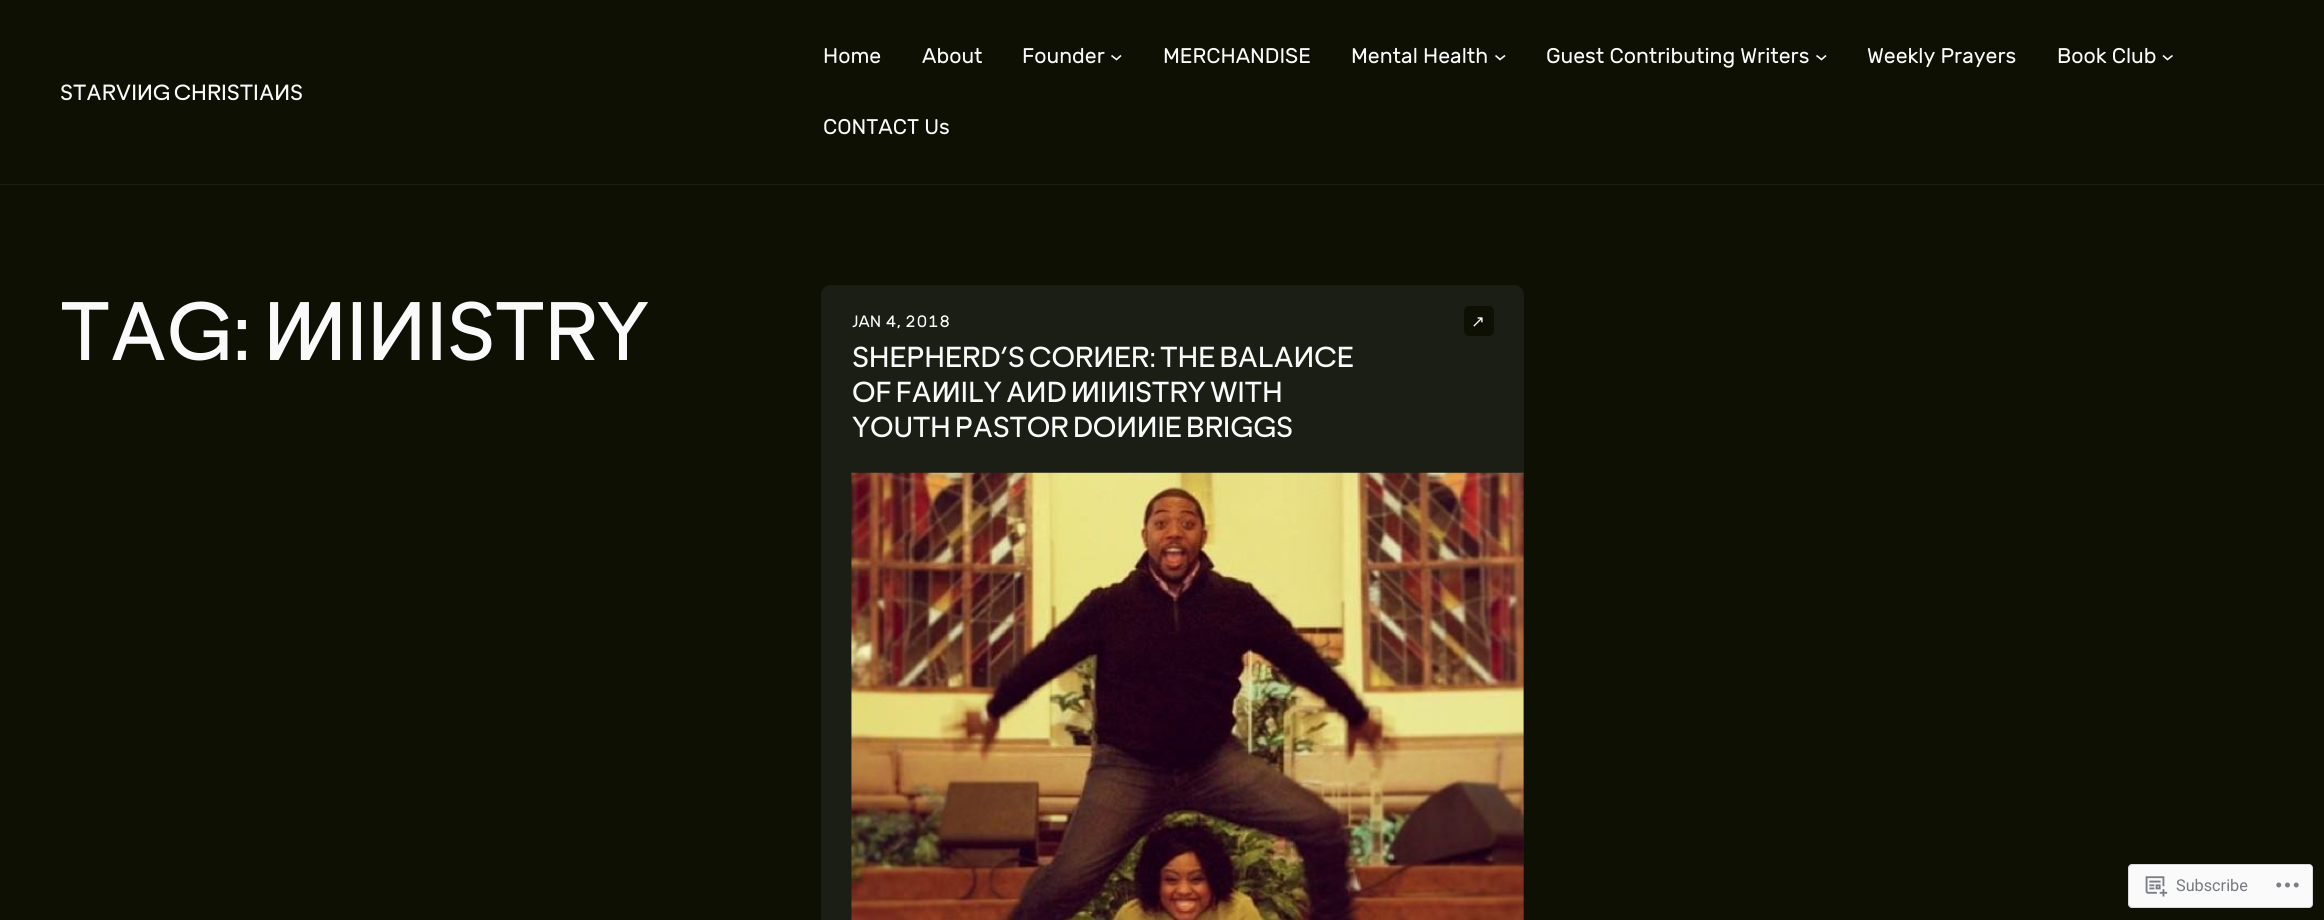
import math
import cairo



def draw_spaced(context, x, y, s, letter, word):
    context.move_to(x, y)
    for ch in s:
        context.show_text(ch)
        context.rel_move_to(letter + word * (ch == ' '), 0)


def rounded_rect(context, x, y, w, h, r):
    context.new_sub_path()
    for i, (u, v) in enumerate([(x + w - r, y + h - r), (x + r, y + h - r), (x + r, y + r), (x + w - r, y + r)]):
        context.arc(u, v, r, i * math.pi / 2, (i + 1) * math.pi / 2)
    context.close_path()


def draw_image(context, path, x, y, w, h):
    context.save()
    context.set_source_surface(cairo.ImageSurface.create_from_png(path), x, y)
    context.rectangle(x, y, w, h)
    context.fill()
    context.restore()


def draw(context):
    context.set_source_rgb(14 / 255, 16 / 255, 4 / 255)
    context.paint()
    context.set_source_rgb(26 / 255, 30 / 255, 21 / 255)
    context.rectangle(0, 184, 2324, 1)
    context.fill()
    context.new_path()
    context.move_to(1111.5, 55.5)
    context.line_to(1116.5, 59.5)
    context.line_to(1121, 55.5)
    context.set_source_rgb(250 / 255, 250 / 255, 250 / 255)
    context.set_line_width(1.6)
    context.stroke()
    context.new_path()
    context.move_to(1495.5, 55.5)
    context.line_to(1500, 59.5)
    context.line_to(1505, 55.5)
    context.stroke()
    context.new_path()
    context.move_to(1816.5, 55.5)
    context.line_to(1821.5, 59.5)
    context.line_to(1826, 55.5)
    context.stroke()
    context.new_path()
    context.move_to(2163, 55.5)
    context.line_to(2167.5, 59.5)
    context.line_to(2172.5, 55.5)
    context.stroke()
    context.set_source_rgb(26 / 255, 30 / 255, 21 / 255)
    rounded_rect(context, 821, 285, 703, 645, 10)
    context.fill()
    context.set_source_rgb(14 / 255, 16 / 255, 4 / 255)
    rounded_rect(context, 1464, 306, 30, 30, 5)
    context.fill()
    draw_image(context, "images/1.png", 851, 472, 673, 448)
    context.set_source_rgb(250 / 255, 250 / 255, 250 / 255)
    rounded_rect(context, 2128.5, 864.5, 184, 43, 3.5)
    context.fill_preserve()
    context.set_source_rgb(216 / 255, 216 / 255, 218 / 255)
    context.set_line_width(1)
    context.stroke()
    draw_image(context, "images/2.png", 2145, 876, 23, 21)
    draw_image(context, "images/3.png", 2276, 882, 23, 6)
    context.select_font_face("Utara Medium")
    context.set_font_size(21.25)
    context.set_source_rgb(250 / 255, 250 / 255, 250 / 255)
    context.move_to(60, 100)
    context.show_text("STARVING CHRISTIANS")
    context.select_font_face("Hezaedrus")
    context.move_to(823, 63)
    context.show_text("Home")
    context.move_to(922, 63)
    context.show_text("About")
    context.move_to(1022, 63)
    context.show_text("Founder")
    context.move_to(1163, 63)
    context.show_text("MERCHANDISE")
    context.move_to(1351, 63)
    context.show_text("Mental Health")
    context.move_to(1546, 63)
    context.show_text("Guest Contributing Writers")
    context.move_to(1867, 63)
    context.show_text("Weekly Prayers")
    context.move_to(2057, 63)
    context.show_text("Book Club")
    context.move_to(823, 134)
    context.show_text("CONTACT Us")
    context.select_font_face("Utara Medium")
    context.set_font_size(80)
    draw_spaced(context, 60, 360, "TAG: MINISTRY", -0.75, 0)
    context.select_font_face("Hezaedrus")
    context.set_font_size(16.5)
    context.move_to(852, 327)
    context.show_text("JAN 4, 2018")
    context.select_font_face("DejaVu Sans")
    context.move_to(1471, 327)
    context.show_text("↗")
    context.select_font_face("Utara Medium")
    context.set_font_size(28)
    draw_spaced(context, 852, 367, "SHEPHERD’S CORNER: THE BALANCE", -0.25, 0)
    draw_spaced(context, 852, 402, "OF FAMILY AND MINISTRY WITH", -0.25, 0)
    draw_spaced(context, 852, 437, "YOUTH PASTOR DONNIE BRIGGS", -0.25, 0)
    context.select_font_face("Roboto")
    context.set_font_size(16.25)
    context.set_source_rgb(118 / 255, 122 / 255, 127 / 255)
    context.move_to(2176, 891)
    context.show_text("Subscribe")


surface = cairo.ImageSurface(cairo.Format.RGB24, 2324, 920)
context = cairo.Context(surface)
options = cairo.FontOptions()
options.set_hint_metrics(cairo.HintMetrics.OFF)
options.set_hint_style(cairo.HintStyle.NONE)
context.set_font_options(options)
context.set_miter_limit(4)
draw(context)
surface.write_to_png("out.png")
